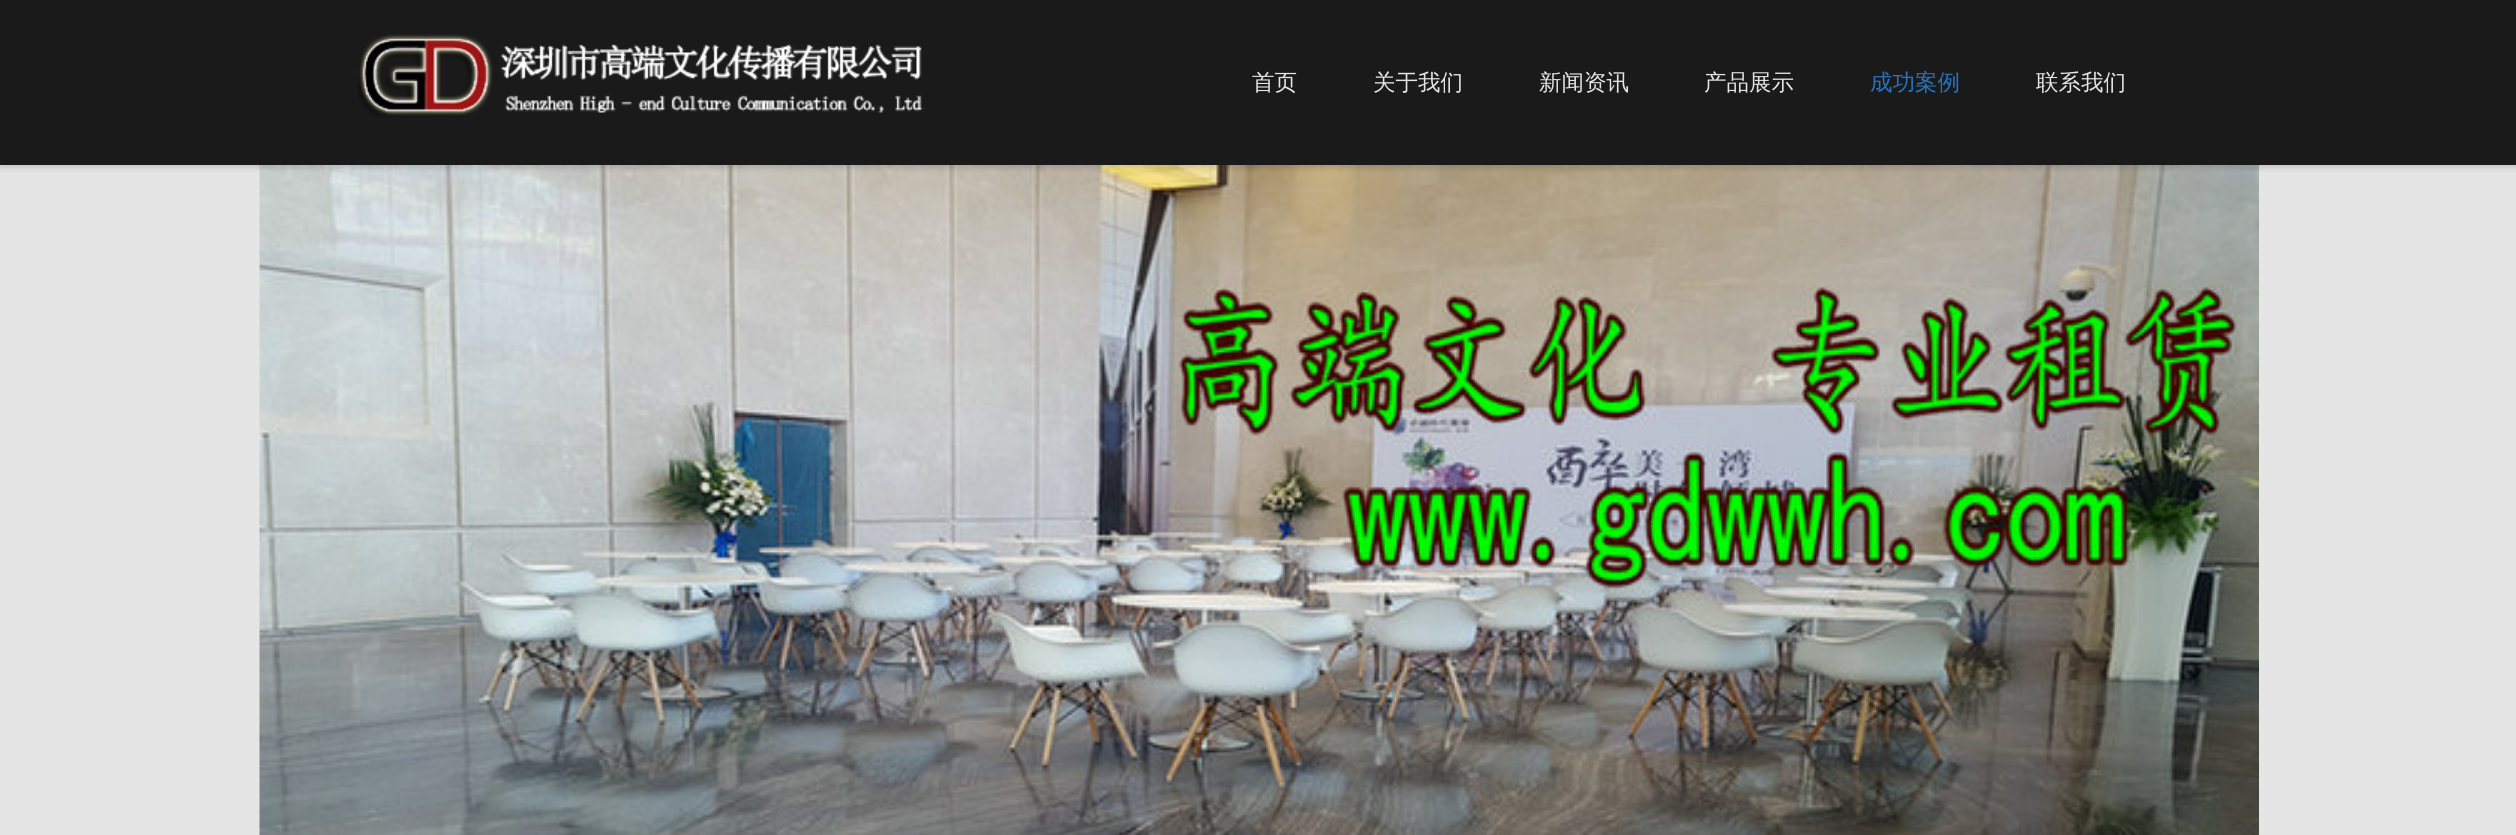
import math
import cairo



def rounded_rect(context, x, y, w, h, r):
    context.new_sub_path()
    for i, (u, v) in enumerate([(x + w - r, y + h - r), (x + r, y + h - r), (x + r, y + r), (x + w - r, y + r)]):
        context.arc(u, v, r, i * math.pi / 2, (i + 1) * math.pi / 2)
    context.close_path()


def draw_shadow(context, x, y, w, h, r, blur, alpha):
    context.push_group_with_content(cairo.Content.ALPHA)
    context.set_operator(cairo.Operator.SOURCE)
    for i in range(15, -16, -2):
        e = blur * i / 6
        if min(w, h) + 2 * e > 0:
            context.set_source_rgba(0, 0, 0, alpha * math.erfc((i - 1) / 8.5) / 2)
            rounded_rect(context, x - e, y - e, w + 2 * e, h + 2 * e, max(0, min(r + e + blur * .6, min(w, h) / 2 + e)))
            context.fill()
    context.mask(context.pop_group())


def draw_image(context, path, x, y, w, h):
    context.save()
    context.set_source_surface(cairo.ImageSurface.create_from_png(path), x, y)
    context.rectangle(x, y, w, h)
    context.fill()
    context.restore()


def draw(context):
    context.set_source_rgb(229 / 255, 229 / 255, 229 / 255)
    context.paint()
    draw_image(context, "images/2.png", 259, 165, 2000, 670)
    context.set_source_rgb(0, 0, 0)
    draw_shadow(context, 0, 3, 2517, 165, 0, 3, 0.15)
    context.set_source_rgb(26 / 255, 26 / 255, 26 / 255)
    context.rectangle(0, 0, 2516, 165)
    context.fill()
    draw_image(context, "images/1.png", 358, 34, 565, 83)
    context.select_font_face("WenQuanYi Zen Hei Medium")
    context.set_font_size(22.5)
    context.set_source_rgb(229 / 255, 229 / 255, 229 / 255)
    context.move_to(1252, 90)
    context.show_text("首页")
    context.move_to(1373, 90)
    context.show_text("关于我们")
    context.move_to(1539, 90)
    context.show_text("新闻资讯")
    context.move_to(1704, 90)
    context.show_text("产品展示")
    context.set_source_rgb(39 / 255, 115 / 255, 190 / 255)
    context.move_to(1870, 90)
    context.show_text("成功案例")
    context.set_source_rgb(229 / 255, 229 / 255, 229 / 255)
    context.move_to(2036, 90)
    context.show_text("联系我们")


surface = cairo.ImageSurface(cairo.Format.RGB24, 2516, 835)
context = cairo.Context(surface)
options = cairo.FontOptions()
options.set_hint_metrics(cairo.HintMetrics.OFF)
options.set_hint_style(cairo.HintStyle.NONE)
context.set_font_options(options)
context.set_miter_limit(4)
draw(context)
surface.write_to_png("out.png")
